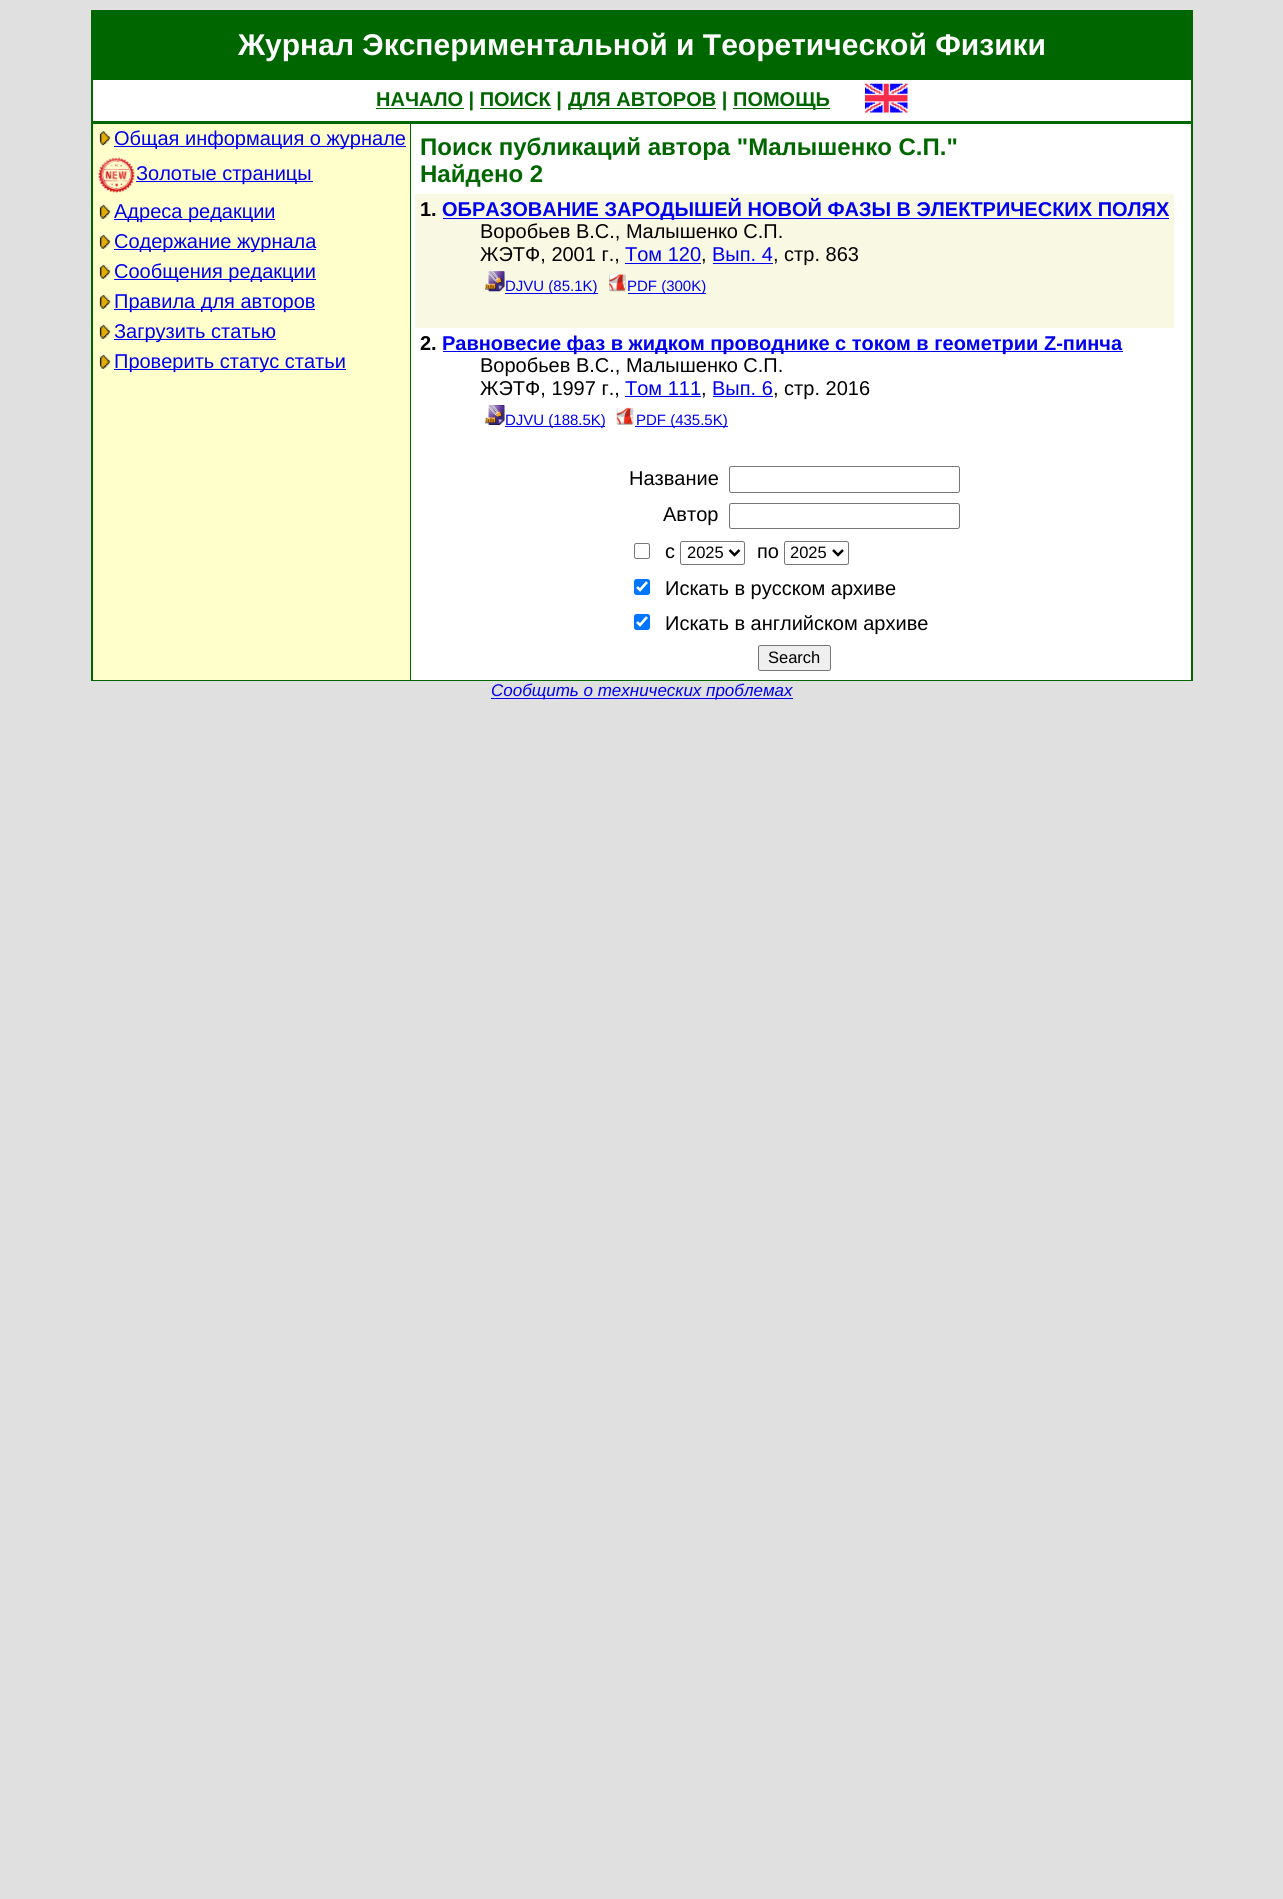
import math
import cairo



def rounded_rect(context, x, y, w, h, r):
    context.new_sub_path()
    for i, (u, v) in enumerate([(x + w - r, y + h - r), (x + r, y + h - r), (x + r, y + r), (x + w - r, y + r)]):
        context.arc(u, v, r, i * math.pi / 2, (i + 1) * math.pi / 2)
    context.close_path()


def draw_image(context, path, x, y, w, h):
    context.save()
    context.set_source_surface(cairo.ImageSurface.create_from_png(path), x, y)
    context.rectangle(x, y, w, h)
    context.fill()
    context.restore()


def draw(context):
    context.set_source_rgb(224 / 255, 224 / 255, 224 / 255)
    context.paint()
    context.set_source_rgb(0, 102 / 255, 0)
    context.rectangle(91, 10, 1102, 671)
    context.fill()
    context.set_source_rgb(1, 1, 1)
    context.rectangle(93, 80, 1098, 600)
    context.fill()
    context.set_source_rgb(0, 102 / 255, 0)
    context.rectangle(376, 108, 88, 1)
    context.fill()
    context.rectangle(568, 108, 148, 1)
    context.fill()
    context.rectangle(733, 108, 97, 1)
    context.fill()
    context.rectangle(480, 108, 71, 1)
    context.fill()
    draw_image(context, "images/1.png", 865, 83, 43, 30)
    context.rectangle(93, 121, 1098, 3)
    context.fill()
    context.set_source_rgb(1, 1, 204 / 255)
    context.rectangle(93, 124, 317, 556)
    context.fill()
    draw_image(context, "images/2.png", 99, 131, 12, 15)
    context.set_source_rgb(0, 0, 238 / 255)
    context.rectangle(114, 146, 292, 1)
    context.fill()
    draw_image(context, "images/3.png", 97, 157, 39, 36)
    context.rectangle(136, 181, 177, 1)
    context.fill()
    draw_image(context, "images/4.png", 99, 204, 12, 15)
    context.rectangle(114, 219, 161, 1)
    context.fill()
    draw_image(context, "images/4.png", 99, 234, 12, 15)
    context.rectangle(114, 249, 202, 1)
    context.fill()
    draw_image(context, "images/4.png", 99, 264, 12, 15)
    context.rectangle(114, 279, 202, 1)
    context.fill()
    draw_image(context, "images/5.png", 99, 294, 12, 15)
    context.rectangle(114, 309, 201, 1)
    context.fill()
    draw_image(context, "images/4.png", 99, 324, 12, 15)
    context.rectangle(114, 339, 162, 1)
    context.fill()
    draw_image(context, "images/4.png", 99, 354, 12, 15)
    context.rectangle(114, 369, 232, 1)
    context.fill()
    context.set_source_rgb(0, 102 / 255, 0)
    context.rectangle(410, 124, 1, 556)
    context.fill()
    context.set_source_rgb(248 / 255, 248 / 255, 227 / 255)
    context.rectangle(415, 194, 759, 134)
    context.fill()
    context.set_source_rgb(0, 0, 238 / 255)
    context.rectangle(443, 218, 726, 1)
    context.fill()
    context.rectangle(625, 263, 76, 1)
    context.fill()
    context.rectangle(713, 263, 60, 1)
    context.fill()
    draw_image(context, "images/6.png", 485, 271, 20, 21)
    context.rectangle(505, 293, 93, 1)
    context.fill()
    draw_image(context, "images/7.png", 609, 274, 17, 18)
    context.rectangle(628, 293, 78, 1)
    context.fill()
    context.rectangle(443, 351, 680, 1)
    context.fill()
    context.rectangle(625, 396, 76, 1)
    context.fill()
    context.rectangle(713, 396, 60, 1)
    context.fill()
    draw_image(context, "images/8.png", 485, 405, 20, 20)
    context.rectangle(505, 426, 100, 1)
    context.fill()
    draw_image(context, "images/9.png", 616, 407, 18, 18)
    context.rectangle(635, 426, 93, 1)
    context.fill()
    rounded_rect(context, 729.5, 466.5, 230, 26, 2)
    context.set_source_rgb(118 / 255, 118 / 255, 118 / 255)
    context.set_line_width(1)
    context.stroke()
    rounded_rect(context, 729.5, 503.5, 230, 25, 2)
    context.stroke()
    rounded_rect(context, 634.5, 543.5, 15, 15, 2)
    context.stroke()
    rounded_rect(context, 680.5, 541.5, 64, 23, 2)
    context.stroke()
    context.new_path()
    context.move_to(729.5, 550)
    context.line_to(734.5, 555)
    context.line_to(739.5, 550)
    context.set_source_rgb(0, 0, 0)
    context.set_line_width(2.5)
    context.stroke()
    rounded_rect(context, 784.5, 541.5, 64, 23, 2)
    context.set_source_rgb(118 / 255, 118 / 255, 118 / 255)
    context.set_line_width(1)
    context.stroke()
    context.new_path()
    context.move_to(833, 550)
    context.line_to(838, 555)
    context.line_to(843, 550)
    context.set_source_rgb(0, 0, 0)
    context.set_line_width(2.5)
    context.stroke()
    context.set_source_rgb(0, 117 / 255, 1)
    rounded_rect(context, 634, 579, 16, 16, 2.5)
    context.fill()
    context.new_path()
    context.move_to(637, 587)
    context.line_to(640, 590)
    context.line_to(647, 582)
    context.set_source_rgb(1, 1, 1)
    context.set_line_width(2.6)
    context.stroke()
    context.set_source_rgb(0, 117 / 255, 1)
    rounded_rect(context, 634, 614, 16, 16, 2.5)
    context.fill()
    context.new_path()
    context.move_to(637, 622)
    context.line_to(640, 625)
    context.line_to(647, 617)
    context.set_source_rgb(1, 1, 1)
    context.stroke()
    context.set_source_rgb(239 / 255, 239 / 255, 239 / 255)
    rounded_rect(context, 758.5, 645.5, 72, 25, 2)
    context.fill_preserve()
    context.set_source_rgb(118 / 255, 118 / 255, 118 / 255)
    context.set_line_width(1)
    context.stroke()
    context.set_source_rgb(0, 0, 238 / 255)
    context.rectangle(491, 698, 302, 1)
    context.fill()
    context.select_font_face("Liberation Sans", cairo.FontSlant.NORMAL, cairo.FontWeight.BOLD)
    context.set_font_size(30)
    context.set_source_rgb(1, 1, 1)
    context.move_to(238, 55)
    context.show_text("Журнал Экспериментальной и Теоретической Физики")
    context.set_font_size(20)
    context.set_source_rgb(0, 102 / 255, 0)
    context.move_to(376, 106)
    context.show_text("НАЧАЛО | ПОИСК |")
    context.move_to(568, 106)
    context.show_text("ДЛЯ АВТОРОВ |")
    context.move_to(733, 106)
    context.show_text("ПОМОЩЬ")
    context.select_font_face("Liberation Sans")
    context.set_source_rgb(0, 0, 238 / 255)
    context.move_to(114, 145)
    context.show_text("Общая информация о журнале")
    context.move_to(136, 180)
    context.show_text("Золотые страницы")
    context.move_to(114, 218)
    context.show_text("Адреса редакции")
    context.move_to(114, 248)
    context.show_text("Содержание журнала")
    context.move_to(114, 278)
    context.show_text("Сообщения редакции")
    context.move_to(114, 308)
    context.show_text("Правила для авторов")
    context.move_to(114, 338)
    context.show_text("Загрузить статью")
    context.move_to(114, 368)
    context.show_text("Проверить статус статьи")
    context.select_font_face("Liberation Sans", cairo.FontSlant.NORMAL, cairo.FontWeight.BOLD)
    context.set_font_size(24)
    context.set_source_rgb(0, 102 / 255, 0)
    context.move_to(420, 155)
    context.show_text("Поиск публикаций автора \"Малышенко С.П.\"")
    context.move_to(420, 182)
    context.show_text("Найдено 2")
    context.set_font_size(20)
    context.set_source_rgb(0, 0, 0)
    context.move_to(420, 216)
    context.show_text("1.")
    context.set_source_rgb(0, 0, 238 / 255)
    context.move_to(442, 216)
    context.show_text("ОБРАЗОВАНИЕ ЗАРОДЫШЕЙ НОВОЙ ФАЗЫ В ЭЛЕКТРИЧЕСКИХ ПОЛЯХ")
    context.select_font_face("Liberation Sans")
    context.set_source_rgb(0, 0, 0)
    context.move_to(480, 238)
    context.show_text("Воробьев В.С., Малышенко С.П.")
    context.move_to(480, 261)
    context.show_text("ЖЭТФ, 2001 г.,")
    context.set_source_rgb(0, 0, 238 / 255)
    context.move_to(625, 261)
    context.show_text("Том 120")
    context.set_source_rgb(0, 0, 0)
    context.move_to(701, 261)
    context.show_text(",")
    context.set_source_rgb(0, 0, 238 / 255)
    context.move_to(712, 261)
    context.show_text("Вып. 4")
    context.set_source_rgb(0, 0, 0)
    context.move_to(773, 261)
    context.show_text(", стр. 863")
    context.set_font_size(15)
    context.set_source_rgb(0, 0, 238 / 255)
    context.move_to(505, 291)
    context.show_text("DJVU (85.1K)")
    context.move_to(627, 291)
    context.show_text("PDF (300K)")
    context.select_font_face("Liberation Sans", cairo.FontSlant.NORMAL, cairo.FontWeight.BOLD)
    context.set_font_size(20)
    context.set_source_rgb(0, 0, 0)
    context.move_to(420, 350)
    context.show_text("2.")
    context.set_source_rgb(0, 0, 238 / 255)
    context.move_to(442, 350)
    context.show_text("Равновесие фаз в жидком проводнике с током в геометрии Z-пинча")
    context.select_font_face("Liberation Sans")
    context.set_source_rgb(0, 0, 0)
    context.move_to(480, 372)
    context.show_text("Воробьев В.С., Малышенко С.П.")
    context.move_to(480, 395)
    context.show_text("ЖЭТФ, 1997 г.,")
    context.set_source_rgb(0, 0, 238 / 255)
    context.move_to(625, 395)
    context.show_text("Том 111")
    context.set_source_rgb(0, 0, 0)
    context.move_to(701, 395)
    context.show_text(",")
    context.set_source_rgb(0, 0, 238 / 255)
    context.move_to(712, 395)
    context.show_text("Вып. 6")
    context.set_source_rgb(0, 0, 0)
    context.move_to(773, 395)
    context.show_text(", стр. 2016")
    context.set_font_size(15)
    context.set_source_rgb(0, 0, 238 / 255)
    context.move_to(505, 425)
    context.show_text("DJVU (188.5K)")
    context.move_to(636, 425)
    context.show_text("PDF (435.5K)")
    context.set_font_size(20)
    context.set_source_rgb(0, 0, 0)
    context.move_to(629, 485)
    context.show_text("Название")
    context.move_to(663, 521)
    context.show_text("Автор")
    context.move_to(665, 558)
    context.show_text("с")
    context.set_font_size(16.5)
    context.move_to(687, 558)
    context.show_text("2025")
    context.set_font_size(20)
    context.move_to(757, 558)
    context.show_text("по")
    context.set_font_size(16.5)
    context.move_to(790, 558)
    context.show_text("2025")
    context.set_font_size(20)
    context.move_to(665, 595)
    context.show_text("Искать в русском архиве")
    context.move_to(665, 630)
    context.show_text("Искать в английском архиве")
    context.set_font_size(16.5)
    context.move_to(768, 663)
    context.show_text("Search")
    context.select_font_face("Liberation Sans", cairo.FontSlant.ITALIC)
    context.set_font_size(17)
    context.set_source_rgb(0, 0, 238 / 255)
    context.move_to(491, 696)
    context.show_text("Сообщить о технических проблемах")


surface = cairo.ImageSurface(cairo.Format.RGB24, 1283, 1899)
context = cairo.Context(surface)
options = cairo.FontOptions()
options.set_hint_metrics(cairo.HintMetrics.OFF)
options.set_hint_style(cairo.HintStyle.NONE)
context.set_font_options(options)
context.set_miter_limit(4)
draw(context)
surface.write_to_png("out.png")
